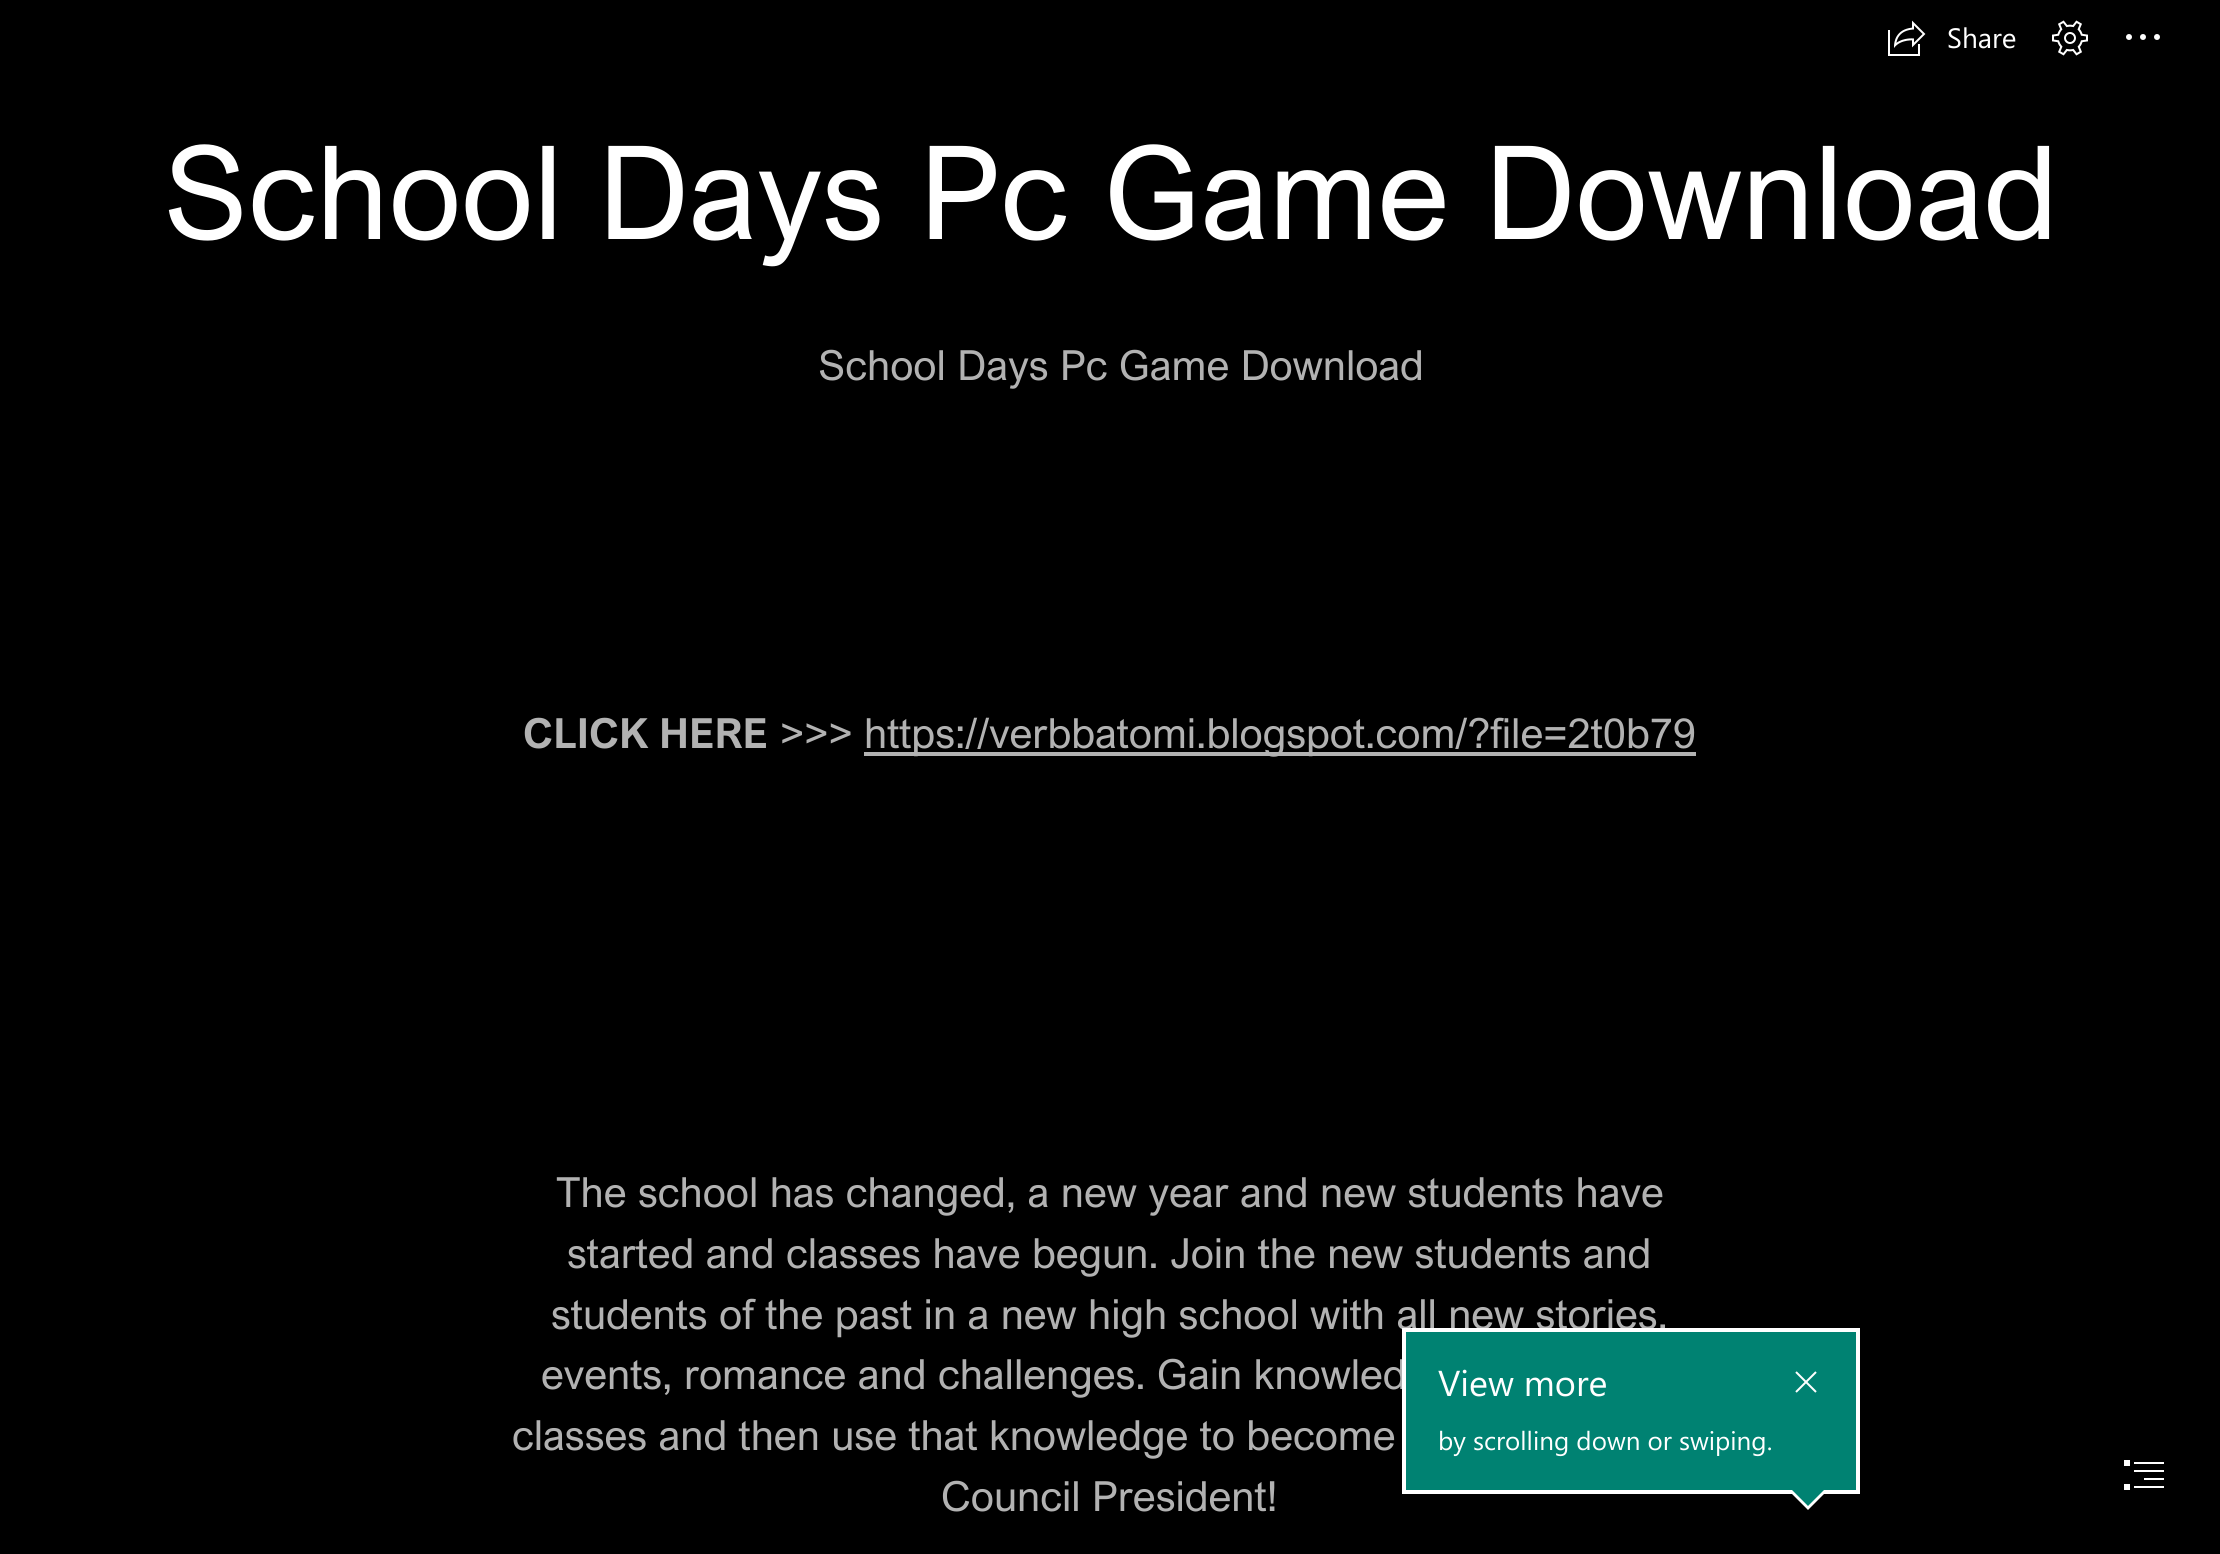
import math
import cairo



def draw_image(context, path, x, y, w, h):
    context.save()
    context.set_source_surface(cairo.ImageSurface.create_from_png(path), x, y)
    context.rectangle(x, y, w, h)
    context.fill()
    context.restore()


def draw(context):
    context.set_source_rgb(0, 0, 0)
    context.paint()
    draw_image(context, "images/1.png", 1888, 20, 38, 36)
    draw_image(context, "images/2.png", 2052, 20, 36, 36)
    draw_image(context, "images/3.png", 2126, 34, 34, 6)
    context.set_source_rgb(178 / 255, 178 / 255, 178 / 255)
    context.rectangle(864, 752, 832, 4)
    context.fill()
    draw_image(context, "images/5.png", 2124, 1460, 40, 30)
    context.select_font_face("Segoe UI")
    context.set_font_size(28)
    context.set_source_rgb(1, 1, 1)
    context.move_to(1947, 48)
    context.show_text("Share")
    context.select_font_face("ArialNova")
    context.set_font_size(130.1)
    context.move_to(163, 239)
    context.show_text("School Days Pc Game Download")
    context.set_font_size(41.6)
    context.set_source_rgb(178 / 255, 178 / 255, 178 / 255)
    context.move_to(818, 380)
    context.show_text("School Days Pc Game Download")
    context.select_font_face("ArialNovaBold", cairo.FontSlant.NORMAL, cairo.FontWeight.BOLD)
    context.move_to(523, 748)
    context.show_text("CLICK HERE")
    context.select_font_face("ArialNova")
    context.move_to(780, 748)
    context.show_text(">>>")
    context.move_to(864, 748)
    context.show_text("https://verbbatomi.blogspot.com/?file=2t0b79")
    context.move_to(556, 1207)
    context.show_text("The school has changed, a new year and new students have")
    context.move_to(567, 1268)
    context.show_text("started and classes have begun. Join the new students and")
    context.move_to(551, 1329)
    context.show_text("students of the past in a new high school with all new stories,")
    context.move_to(541, 1389)
    context.show_text("events, romance and challenges. Gain knowled")
    context.move_to(512, 1450)
    context.show_text("classes and then use that knowledge to become")
    context.move_to(941, 1511)
    context.show_text("Council President!")
    context.set_source_rgb(0, 130 / 255, 114 / 255)
    context.rectangle(1404, 1330, 454, 162)
    context.fill_preserve()
    context.set_source_rgb(1, 1, 1)
    context.set_line_width(4)
    context.stroke()
    context.select_font_face("Segoe UI")
    context.set_font_size(36)
    context.move_to(1438, 1396)
    context.show_text("View more")
    context.set_font_size(26)
    context.move_to(1438, 1450)
    context.show_text("by scrolling down or swiping.")
    draw_image(context, "images/4.png", 1795, 1371, 22, 22)
    context.new_path()
    context.move_to(1788, 1490)
    context.line_to(1828, 1490)
    context.line_to(1808, 1510)
    context.close_path()
    context.fill()
    context.set_source_rgb(0, 130 / 255, 114 / 255)
    context.new_path()
    context.move_to(1792, 1490)
    context.line_to(1824, 1490)
    context.line_to(1808, 1506)
    context.close_path()
    context.fill()


surface = cairo.ImageSurface(cairo.Format.RGB24, 2220, 1554)
context = cairo.Context(surface)
options = cairo.FontOptions()
options.set_hint_metrics(cairo.HintMetrics.OFF)
options.set_hint_style(cairo.HintStyle.NONE)
context.set_font_options(options)
context.set_miter_limit(4)
draw(context)
surface.write_to_png("out.png")
